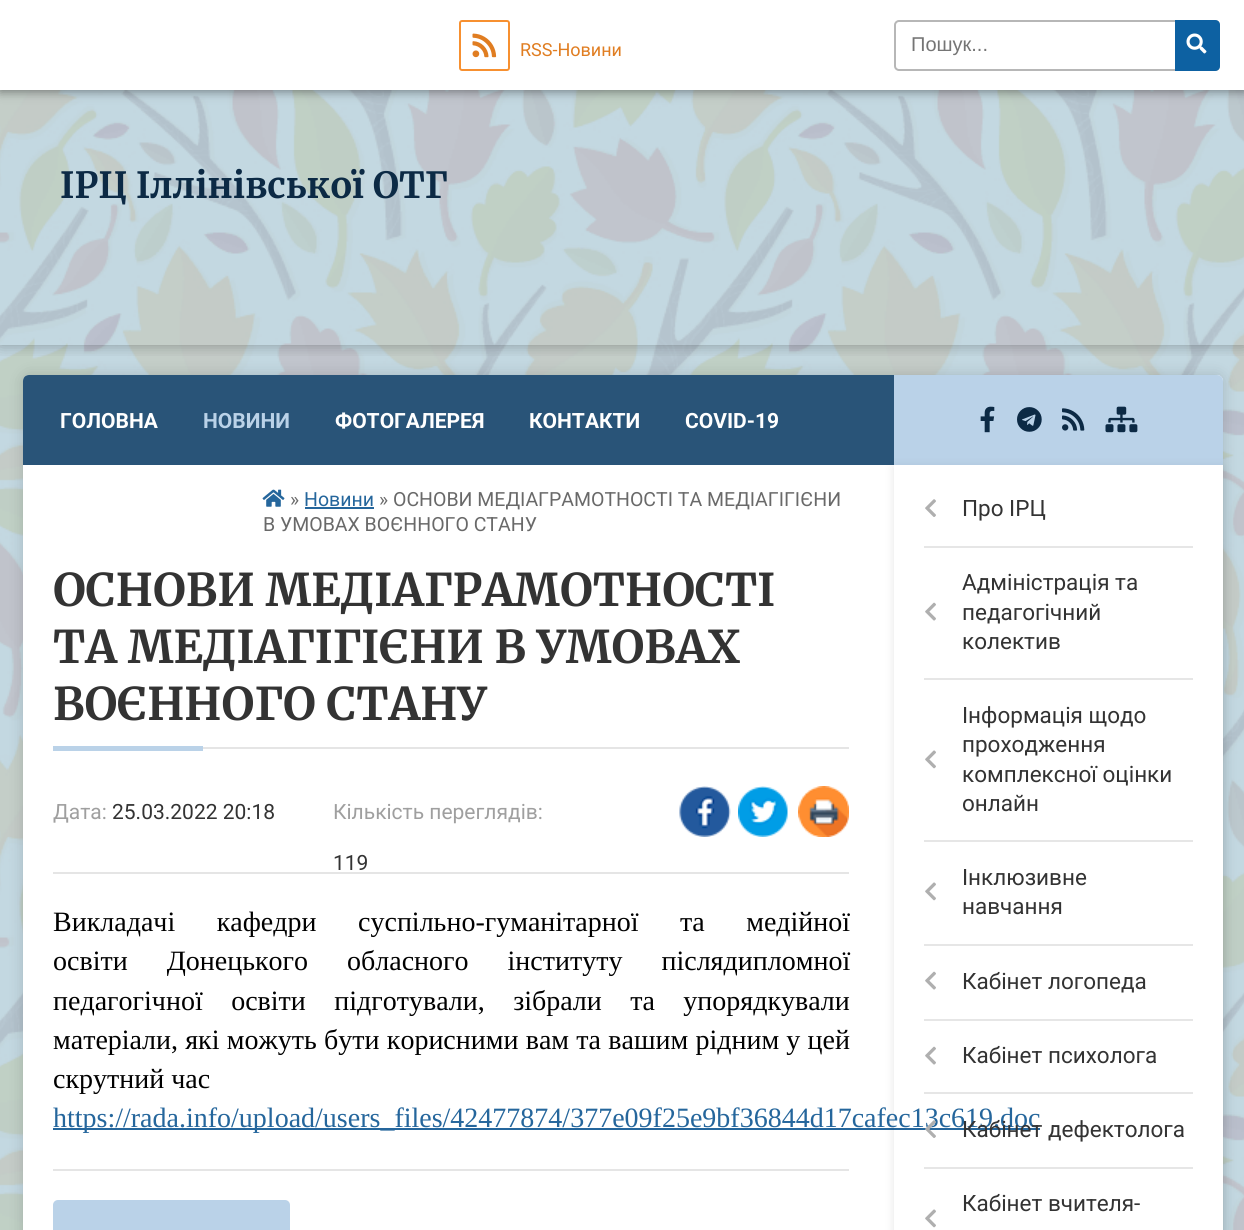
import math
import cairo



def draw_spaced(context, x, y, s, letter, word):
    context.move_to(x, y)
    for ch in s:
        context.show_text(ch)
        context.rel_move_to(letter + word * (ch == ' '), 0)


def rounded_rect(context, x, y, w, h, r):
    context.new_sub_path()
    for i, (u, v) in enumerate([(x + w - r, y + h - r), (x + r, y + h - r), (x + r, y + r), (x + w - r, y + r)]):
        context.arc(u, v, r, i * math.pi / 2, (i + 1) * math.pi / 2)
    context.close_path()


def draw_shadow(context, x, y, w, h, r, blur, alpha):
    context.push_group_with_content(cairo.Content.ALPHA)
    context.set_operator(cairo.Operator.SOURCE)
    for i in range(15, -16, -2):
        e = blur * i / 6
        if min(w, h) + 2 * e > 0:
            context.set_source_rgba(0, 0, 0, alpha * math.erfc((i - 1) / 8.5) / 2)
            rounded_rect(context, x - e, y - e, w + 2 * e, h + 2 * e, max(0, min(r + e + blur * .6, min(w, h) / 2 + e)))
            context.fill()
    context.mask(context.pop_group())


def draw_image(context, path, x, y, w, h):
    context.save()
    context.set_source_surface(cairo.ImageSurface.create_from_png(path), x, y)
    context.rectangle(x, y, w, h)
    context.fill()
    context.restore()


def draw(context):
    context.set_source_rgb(186 / 255, 210 / 255, 232 / 255)
    context.paint()
    draw_image(context, "images/1.png", 0, 90, 1244, 1140)
    context.set_source_rgb(0, 0, 0)
    draw_shadow(context, 0, 2, 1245, 90, 0, 5, 0.4)
    context.save()
    context.rectangle(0, 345, 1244, 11)
    context.clip()
    draw_shadow(context, 0, 90, 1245, 255, 0, 7.5, 0.3)
    context.restore()
    context.set_source_rgb(1, 1, 1)
    context.rectangle(0, 0, 1244, 90)
    context.fill()
    rounded_rect(context, 460, 21, 49, 49, 2)
    context.set_source_rgb(247 / 255, 144 / 255, 48 / 255)
    context.stroke()
    draw_image(context, "images/2.png", 472, 33, 25, 25)
    rounded_rect(context, 895, 21, 324, 49, 4)
    context.set_source_rgb(183 / 255, 183 / 255, 183 / 255)
    context.stroke()
    context.set_source_rgb(13 / 255, 97 / 255, 162 / 255)
    context.new_path()
    context.move_to(1175, 20)
    context.line_to(1215, 20)
    context.curve_to(1218, 20, 1220, 22, 1220, 25)
    context.line_to(1220, 66)
    context.curve_to(1220, 69, 1218, 71, 1215, 71)
    context.line_to(1175, 71)
    context.close_path()
    context.fill()
    draw_image(context, "images/3.png", 1186, 33, 21, 21)
    context.set_source_rgb(0, 0, 0)
    draw_shadow(context, 23, 375, 1200, 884, 6, 7.5, 0.15)
    context.set_source_rgb(1, 1, 1)
    rounded_rect(context, 23, 375, 1200, 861, 6)
    context.fill()
    context.set_source_rgb(41 / 255, 84 / 255, 120 / 255)
    context.new_path()
    context.move_to(29, 375)
    context.line_to(894, 375)
    context.line_to(894, 465)
    context.line_to(23, 465)
    context.line_to(23, 381)
    context.curve_to(23, 377.5, 25.5, 375, 29, 375)
    context.close_path()
    context.fill()
    draw_image(context, "images/4.png", 262, 489, 23, 18)
    context.set_source_rgb(37 / 255, 102 / 255, 156 / 255)
    context.rectangle(305, 507, 69, 2)
    context.fill()
    context.set_source_rgb(229 / 255, 229 / 255, 229 / 255)
    context.rectangle(203, 747, 646, 2)
    context.fill()
    context.set_source_rgb(186 / 255, 210 / 255, 232 / 255)
    context.rectangle(53, 746, 150, 5)
    context.fill()
    draw_image(context, "images/5.png", 679, 786, 52, 51)
    draw_image(context, "images/6.png", 738, 786, 50, 51)
    draw_image(context, "images/7.png", 798, 786, 51, 51)
    context.set_source_rgb(229 / 255, 229 / 255, 229 / 255)
    context.rectangle(53, 872, 796, 2)
    context.fill()
    context.set_source_rgb(37 / 255, 102 / 255, 156 / 255)
    context.rectangle(53, 1128, 987, 2)
    context.fill()
    context.set_source_rgb(229 / 255, 229 / 255, 229 / 255)
    context.rectangle(53, 1169, 796, 2)
    context.fill()
    context.set_source_rgb(186 / 255, 210 / 255, 232 / 255)
    rounded_rect(context, 53, 1200, 237, 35, 5)
    context.fill()
    context.new_path()
    context.move_to(894, 375)
    context.line_to(1217, 375)
    context.curve_to(1220.5, 375, 1223, 377.5, 1223, 381)
    context.line_to(1223, 465)
    context.line_to(894, 465)
    context.close_path()
    context.fill()
    draw_image(context, "images/8.png", 980, 406, 15, 27)
    draw_image(context, "images/9.png", 1017, 407, 25, 25)
    draw_image(context, "images/10.png", 1062, 408, 23, 23)
    draw_image(context, "images/11.png", 1105, 406, 33, 27)
    context.save()
    context.set_fill_rule(cairo.FillRule.EVEN_ODD)
    context.new_path()
    context.move_to(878, 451)
    context.line_to(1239, 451)
    context.line_to(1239, 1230)
    context.line_to(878, 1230)
    context.close_path()
    context.move_to(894, 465)
    context.line_to(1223, 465)
    context.line_to(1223, 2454)
    context.line_to(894, 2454)
    context.close_path()
    context.clip()
    context.set_source_rgb(0, 0, 0)
    draw_shadow(context, 894, 467, 329, 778, 0, 5, 0.1)
    context.restore()
    draw_image(context, "images/12.png", 925, 499, 11, 18)
    context.set_source_rgb(230 / 255, 230 / 255, 230 / 255)
    context.rectangle(924, 546, 269, 2)
    context.fill()
    draw_image(context, "images/13.png", 925, 602, 11, 19)
    context.rectangle(924, 678, 269, 2)
    context.fill()
    draw_image(context, "images/14.png", 925, 750, 11, 19)
    context.rectangle(924, 840, 269, 2)
    context.fill()
    draw_image(context, "images/14.png", 925, 882, 11, 19)
    context.rectangle(924, 944, 269, 2)
    context.fill()
    draw_image(context, "images/13.png", 925, 971, 11, 19)
    context.rectangle(924, 1019, 269, 2)
    context.fill()
    draw_image(context, "images/13.png", 925, 1046, 11, 19)
    context.rectangle(924, 1092, 269, 2)
    context.fill()
    context.rectangle(924, 1167, 269, 2)
    context.fill()
    draw_image(context, "images/14.png", 925, 1209, 11, 19)
    context.select_font_face("Roboto")
    context.set_font_size(18)
    context.set_source_rgb(224 / 255, 125 / 255, 33 / 255)
    context.move_to(520, 56)
    context.show_text("RSS-Новини")
    context.select_font_face("Liberation Sans")
    context.set_font_size(20)
    context.set_source_rgb(117 / 255, 117 / 255, 117 / 255)
    context.move_to(911, 51)
    context.show_text("Пошук...")
    context.select_font_face("Merriweather Light")
    context.set_font_size(36)
    context.set_source_rgb(12 / 255, 42 / 255, 69 / 255)
    context.move_to(60, 198)
    context.show_text("ІРЦ Іллінівської ОТГ")
    context.select_font_face("Roboto", cairo.FontSlant.NORMAL, cairo.FontWeight.BOLD)
    context.set_font_size(21)
    context.set_source_rgb(1, 1, 1)
    context.move_to(60, 428)
    context.show_text("ГОЛОВНА")
    context.set_source_rgb(186 / 255, 210 / 255, 232 / 255)
    context.move_to(203, 428)
    context.show_text("НОВИНИ")
    context.set_source_rgb(1, 1, 1)
    context.move_to(335, 428)
    context.show_text("ФОТОГАЛЕРЕЯ")
    context.move_to(529, 428)
    context.show_text("КОНТАКТИ")
    context.move_to(685, 428)
    context.show_text("COVID-19")
    context.select_font_face("Roboto")
    context.set_font_size(19.5)
    context.set_source_rgb(105 / 255, 105 / 255, 105 / 255)
    context.move_to(290, 506)
    context.show_text("»")
    context.set_source_rgb(37 / 255, 102 / 255, 156 / 255)
    context.move_to(304, 506)
    context.show_text("Новини")
    context.set_source_rgb(105 / 255, 105 / 255, 105 / 255)
    context.move_to(379, 506)
    context.show_text("» ОСНОВИ МЕДІАГРАМОТНОСТІ ТА МЕДІАГІГІЄНИ")
    context.move_to(263, 531)
    context.show_text("В УМОВАХ ВОЄННОГО СТАНУ")
    context.select_font_face("Merriweather Light")
    context.set_font_size(45)
    context.set_source_rgb(51 / 255, 51 / 255, 51 / 255)
    context.move_to(53, 606)
    context.show_text("ОСНОВИ МЕДІАГРАМОТНОСТІ")
    context.move_to(53, 663)
    context.show_text("ТА МЕДІАГІГІЄНИ В УМОВАХ")
    context.move_to(53, 720)
    context.show_text("ВОЄННОГО СТАНУ")
    context.select_font_face("Roboto")
    context.set_font_size(21)
    context.set_source_rgb(159 / 255, 159 / 255, 159 / 255)
    context.move_to(53, 819)
    context.show_text("Дата:")
    context.set_source_rgb(51 / 255, 51 / 255, 51 / 255)
    context.move_to(112, 819)
    context.show_text("25.03.2022 20:18")
    context.set_source_rgb(159 / 255, 159 / 255, 159 / 255)
    context.move_to(333, 819)
    context.show_text("Кількість переглядів:")
    context.set_source_rgb(51 / 255, 51 / 255, 51 / 255)
    context.move_to(333, 870)
    context.show_text("119")
    context.select_font_face("Liberation Serif")
    context.set_font_size(28)
    context.set_source_rgb(0, 0, 0)
    draw_spaced(context, 53, 931, "Викладачі кафедри суспільно-гуманітарної та медійної", 0, 34.5)
    draw_spaced(context, 53, 970, "освіти Донецького обласного інституту післядипломної", 0, 32)
    draw_spaced(context, 53, 1010, "педагогічної освіти підготували, зібрали та упорядкували", 0, 21.5)
    draw_spaced(context, 53, 1049, "матеріали, які можуть бути корисними вам та вашим рідним у цей", 0, 0.25)
    context.move_to(53, 1088)
    context.show_text("скрутний час")
    context.set_source_rgb(37 / 255, 102 / 255, 156 / 255)
    context.move_to(53, 1127)
    context.show_text("https://rada.info/upload/users_files/42477874/377e09f25e9bf36844d17cafec13c619.doc")
    context.select_font_face("Roboto")
    context.set_font_size(22.5)
    context.set_source_rgb(51 / 255, 51 / 255, 51 / 255)
    context.move_to(962, 516)
    context.show_text("Про ІРЦ")
    context.move_to(962, 590)
    context.show_text("Адміністрація та")
    context.move_to(962, 620)
    context.show_text("педагогічний")
    context.move_to(962, 649)
    context.show_text("колектив")
    context.move_to(962, 723)
    context.show_text("Інформація щодо")
    context.move_to(962, 752)
    context.show_text("проходження")
    context.move_to(962, 782)
    context.show_text("комплексної оцінки")
    context.move_to(962, 811)
    context.show_text("онлайн")
    context.move_to(962, 885)
    context.show_text("Інклюзивне")
    context.move_to(962, 914)
    context.show_text("навчання")
    context.move_to(962, 989)
    context.show_text("Кабінет логопеда")
    context.move_to(962, 1063)
    context.show_text("Кабінет психолога")
    draw_image(context, "images/15.png", 925, 1120, 11, 18)
    context.move_to(962, 1137)
    context.show_text("Кабінет дефектолога")
    context.move_to(962, 1211)
    context.show_text("Кабінет вчителя-")


surface = cairo.ImageSurface(cairo.Format.RGB24, 1244, 1230)
context = cairo.Context(surface)
options = cairo.FontOptions()
options.set_hint_metrics(cairo.HintMetrics.OFF)
options.set_hint_style(cairo.HintStyle.NONE)
context.set_font_options(options)
context.set_miter_limit(4)
draw(context)
surface.write_to_png("out.png")
